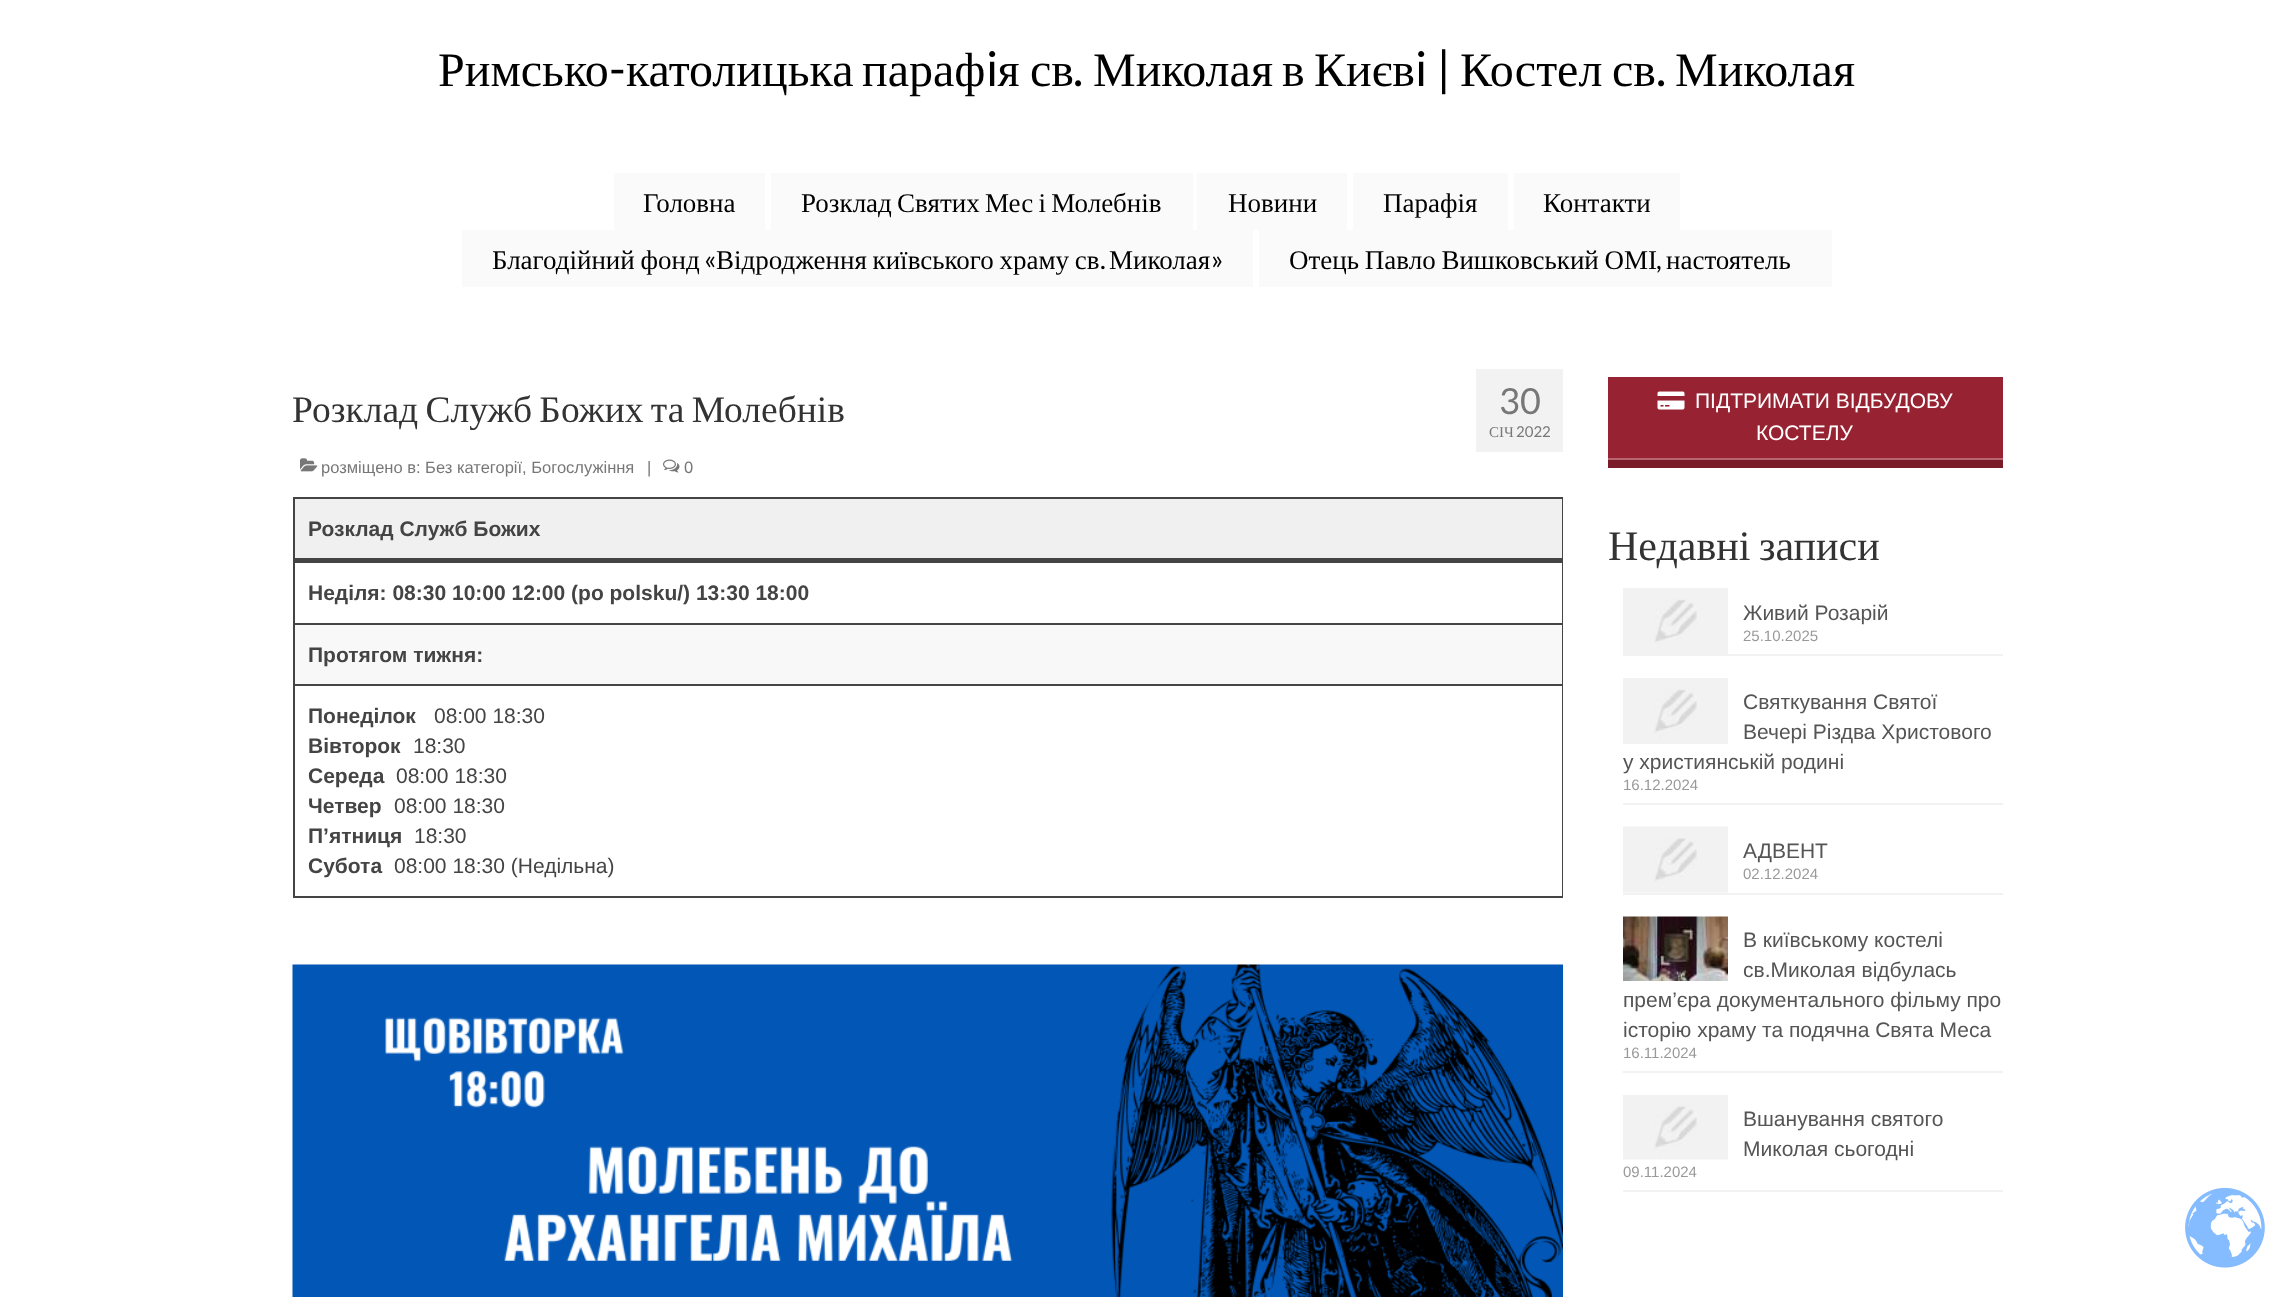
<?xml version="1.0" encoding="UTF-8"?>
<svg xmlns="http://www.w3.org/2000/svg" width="2293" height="1297">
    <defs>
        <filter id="blur1" x="-50%" y="-200%" width="200%" height="500%"><feGaussianBlur stdDeviation="2"/></filter>
    </defs>
    <rect width="100%" height="100%" fill="#FFFFFF"/>
    <text x="862" y="86" font-family="Liberation Serif" font-size="48" fill="#000000">параф я</text>
    <text x="986" y="86" font-family="Lato" font-size="48" fill="#000000">i</text>
    <text x="1415" y="86" font-family="Lato" font-size="48" fill="#000000">i |</text>
    <text x="438" y="86" font-family="Liberation Serif" font-size="48" fill="#000000">Римсько</text>
    <text x="609" y="86" font-family="Lato" font-size="48" fill="#000000">-</text>
    <text x="626" y="86" font-family="Liberation Serif" font-size="48" fill="#000000">католицька</text>
    <text x="1030" y="86" font-family="Liberation Serif" font-size="48" fill="#000000">св</text>
    <text x="1093" y="86" font-family="Liberation Serif" font-size="48" fill="#000000">Миколая</text>
    <text x="1282" y="86" font-family="Liberation Serif" font-size="48" fill="#000000">в</text>
    <text x="1314" y="86" font-family="Liberation Serif" font-size="48" fill="#000000">Києв</text>
    <text x="1460" y="86" font-family="Liberation Serif" font-size="48" fill="#000000">Костел</text>
    <text x="1612" y="86" font-family="Liberation Serif" font-size="48" fill="#000000">св</text>
    <text x="1675" y="86" font-family="Liberation Serif" font-size="48" fill="#000000">Миколая</text>
    <text x="1073" y="86" font-family="Lato" font-size="48" fill="#000000">.</text>
    <text x="1656" y="86" font-family="Lato" font-size="48" fill="#000000">.</text>
    <rect x="614" y="173" width="151" height="57" fill="#FAFAFA"/>
    <text x="643" y="212" font-family="Liberation Serif" font-size="27" fill="#000000">Головна</text>
    <rect x="771" y="173" width="422" height="57" fill="#FAFAFA"/>
    <text x="801" y="212" word-spacing="-1.5" font-family="Liberation Serif" font-size="27" fill="#000000">Розклад Святих Мес і Молебнів</text>
    <rect x="1197" y="173" width="150" height="57" fill="#FAFAFA"/>
    <text x="1228" y="212" font-family="Liberation Serif" font-size="27" fill="#000000">Новини</text>
    <rect x="1353" y="173" width="155" height="57" fill="#FAFAFA"/>
    <text x="1383" y="212" font-family="Liberation Serif" font-size="27" fill="#000000">Парафія</text>
    <rect x="1514" y="173" width="166" height="57" fill="#FAFAFA"/>
    <text x="1543" y="212" font-family="Liberation Serif" font-size="27" fill="#000000">Контакти</text>
    <rect x="462" y="230" width="791" height="57" fill="#FAFAFA"/>
    <text x="492" y="269" word-spacing="-1" font-family="Liberation Serif" font-size="27" fill="#000000">Благодійний фонд</text>
    <text x="704" y="269" font-family="Lato" font-size="27" fill="#000000">«</text>
    <text x="716" y="269" word-spacing="-1" font-family="Liberation Serif" font-size="27" fill="#000000">Відродження київського храму св</text>
    <text x="1100" y="269" font-family="Lato" font-size="27" fill="#000000">.</text>
    <text x="1109" y="269" font-family="Liberation Serif" font-size="27" fill="#000000">Миколая</text>
    <text x="1211" y="269" font-family="Lato" font-size="27" fill="#000000">»</text>
    <rect x="1259" y="230" width="573" height="57" fill="#FAFAFA"/>
    <text x="1289" y="269" word-spacing="-1" font-family="Liberation Serif" font-size="27" fill="#000000">Отець Павло Вишковський ОМІ</text>
    <text x="1656" y="269" font-family="Lato" font-size="27" fill="#000000">,</text>
    <text x="1666" y="269" font-family="Liberation Serif" font-size="27" fill="#000000">настоятель</text>
    <text x="292" y="422" word-spacing="-2" font-family="Liberation Serif" font-size="37.5" fill="#333333">Розклад Служб Божих та Молебнів</text>
    <image x="300" y="458" width="18" height="14" href="img_01.png"/>
    <text x="321" y="473" font-family="Liberation Sans" font-size="16.5" fill="#777777">розміщено в: Без категорії, Богослужіння</text>
    <text x="647" y="473" font-family="Liberation Sans" font-size="16.5" fill="#777777">|</text>
    <image x="663" y="459" width="17" height="14" href="img_02.png"/>
    <text x="684" y="473" font-family="Liberation Sans" font-size="16.5" fill="#777777">0</text>
    <rect x="1476" y="369" width="87" height="83" fill="#F2F2F2"/>
    <text x="1499" y="414" font-family="Lato" font-size="36" fill="#777777">30</text>
    <text x="1489" y="437" font-family="Liberation Serif" font-size="15" fill="#777777">СІЧ</text>
    <text x="1516" y="437" font-family="Lato" font-size="15" fill="#777777">2022</text>
    <rect x="295" y="499" width="1267" height="59" fill="#F0F0F0"/>
    <rect x="293" y="497" width="1270" height="2" fill="#444444"/>
    <rect x="293" y="623" width="1270" height="2" fill="#444444"/>
    <rect x="293" y="684" width="1270" height="2" fill="#444444"/>
    <rect x="1562" y="684" width="1" height="213" fill="#444444"/>
    <rect x="1562" y="560" width="1" height="126" fill="#444444"/>
    <rect x="1562" y="497" width="1" height="64" fill="#444444"/>
    <rect x="293" y="896" width="1270" height="2" fill="#444444"/>
    <rect x="293" y="684" width="2" height="213" fill="#444444"/>
    <rect x="293" y="560" width="2" height="126" fill="#444444"/>
    <rect x="293" y="497" width="2" height="64" fill="#444444"/>
    <rect x="293" y="558" width="1270" height="5" fill="#444444"/>
    <text x="308" y="536" font-family="Liberation Sans" font-size="21" font-weight="700" fill="#444444">Розклад Служб Божих</text>
    <text x="308" y="600" font-family="Liberation Sans" font-size="21" font-weight="700" fill="#444444">Неділя: 08:30 10:00 12:00 (po polsku/) 13:30 18:00</text>
    <rect x="295" y="625" width="1267" height="59" fill="#F8F8F8"/>
    <text x="308" y="662" font-family="Liberation Sans" font-size="21" font-weight="700" fill="#444444">Протягом тижня:</text>
    <text x="308" y="723" font-family="Liberation Sans" font-size="21" font-weight="700" fill="#444444">Понеділок</text>
    <text x="434" y="723" font-family="Liberation Sans" font-size="21" fill="#444444">08:00 18:30</text>
    <text x="308" y="753" font-family="Liberation Sans" font-size="21" font-weight="700" fill="#444444">Вівторок</text>
    <text x="413" y="753" font-family="Liberation Sans" font-size="21" fill="#444444">18:30</text>
    <text x="308" y="783" font-family="Liberation Sans" font-size="21" font-weight="700" fill="#444444">Середа</text>
    <text x="396" y="783" font-family="Liberation Sans" font-size="21" fill="#444444">08:00 18:30</text>
    <text x="308" y="813" font-family="Liberation Sans" font-size="21" font-weight="700" fill="#444444">Четвер</text>
    <text x="394" y="813" font-family="Liberation Sans" font-size="21" fill="#444444">08:00 18:30</text>
    <text x="308" y="843" font-family="Liberation Sans" font-size="21" font-weight="700" fill="#444444">П’ятниця</text>
    <text x="414" y="843" font-family="Liberation Sans" font-size="21" fill="#444444">18:30</text>
    <text x="308" y="873" font-family="Liberation Sans" font-size="21" font-weight="700" fill="#444444">Субота</text>
    <text x="394" y="873" font-family="Liberation Sans" font-size="21" fill="#444444">08:00 18:30 (Недільна)</text>
    <rect x="293" y="966" width="1270" height="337" fill="#000000" fill-opacity="0.06" filter="url(#blur1)"/>
    <image x="292" y="964" width="1271" height="333" href="img_03.png"/>
    <rect x="1608" y="377" width="395" height="81" fill="#972232"/>
    <rect x="1608" y="460" width="395" height="8" fill="#791C28"/>
    <rect x="1608" y="458" width="395" height="2" fill="#B76570"/>
    <image x="1657" y="391" width="28" height="19" href="img_04.png"/>
    <text x="1695" y="408" font-family="Liberation Sans" font-size="21" fill="#FFFFFF">ПІДТРИМАТИ ВІДБУДОВУ</text>
    <text x="1756" y="440" font-family="Liberation Sans" font-size="21" fill="#FFFFFF">КОСТЕЛУ</text>
    <text x="1608" y="560" word-spacing="-2" font-family="Liberation Serif" font-size="42" fill="#333333">Недавні записи</text>
    <rect x="1623" y="654" width="380" height="2" fill="#F2F2F2"/>
    <image x="1623" y="588" width="105" height="66" href="img_05.png"/>
    <text x="1743" y="620" font-family="Liberation Sans" font-size="21" fill="#555555">Живий Розарій</text>
    <text x="1743" y="641" font-family="Liberation Sans" font-size="15" fill="#999999">25.10.2025</text>
    <rect x="1623" y="803" width="380" height="2" fill="#F2F2F2"/>
    <image x="1623" y="678" width="105" height="66" href="img_05.png"/>
    <text font-family="Liberation Sans" font-size="21" fill="#555555">
        <tspan x="1743" y="709">Святкування Святої</tspan>
        <tspan x="1743" y="739">Вечері Різдва Христового</tspan>
    </text>
    <text x="1623" y="769" font-family="Liberation Sans" font-size="21" fill="#555555">у християнській родині</text>
    <text x="1623" y="790" font-family="Liberation Sans" font-size="15" fill="#999999">16.12.2024</text>
    <rect x="1623" y="893" width="380" height="2" fill="#F2F2F2"/>
    <image x="1623" y="826" width="105" height="67" href="img_06.png"/>
    <text x="1743" y="858" font-family="Liberation Sans" font-size="21" fill="#555555">АДВЕНТ</text>
    <text x="1743" y="879" font-family="Liberation Sans" font-size="15" fill="#999999">02.12.2024</text>
    <rect x="1623" y="1071" width="380" height="2" fill="#F2F2F2"/>
    <image x="1623" y="916" width="105" height="65" href="img_07.png"/>
    <text font-family="Liberation Sans" font-size="21" fill="#555555">
        <tspan x="1743" y="947">В київському костелі</tspan>
        <tspan x="1743" y="977">св.Миколая відбулась</tspan>
    </text>
    <text font-family="Liberation Sans" font-size="21" fill="#555555">
        <tspan x="1623" y="1007">прем’єра документального фільму про</tspan>
        <tspan x="1623" y="1037">історію храму та подячна Свята Меса</tspan>
    </text>
    <text x="1623" y="1058" font-family="Liberation Sans" font-size="15" fill="#999999">16.11.2024</text>
    <rect x="1623" y="1190" width="380" height="2" fill="#F2F2F2"/>
    <image x="1623" y="1095" width="105" height="65" href="img_08.png"/>
    <text font-family="Liberation Sans" font-size="21" fill="#555555">
        <tspan x="1743" y="1126">Вшанування святого</tspan>
        <tspan x="1743" y="1156">Миколая сьогодні</tspan>
    </text>
    <text x="1623" y="1177" font-family="Liberation Sans" font-size="15" fill="#999999">09.11.2024</text>
    <image x="2185" y="1187" width="80" height="81" href="img_09.png"/>
</svg>
